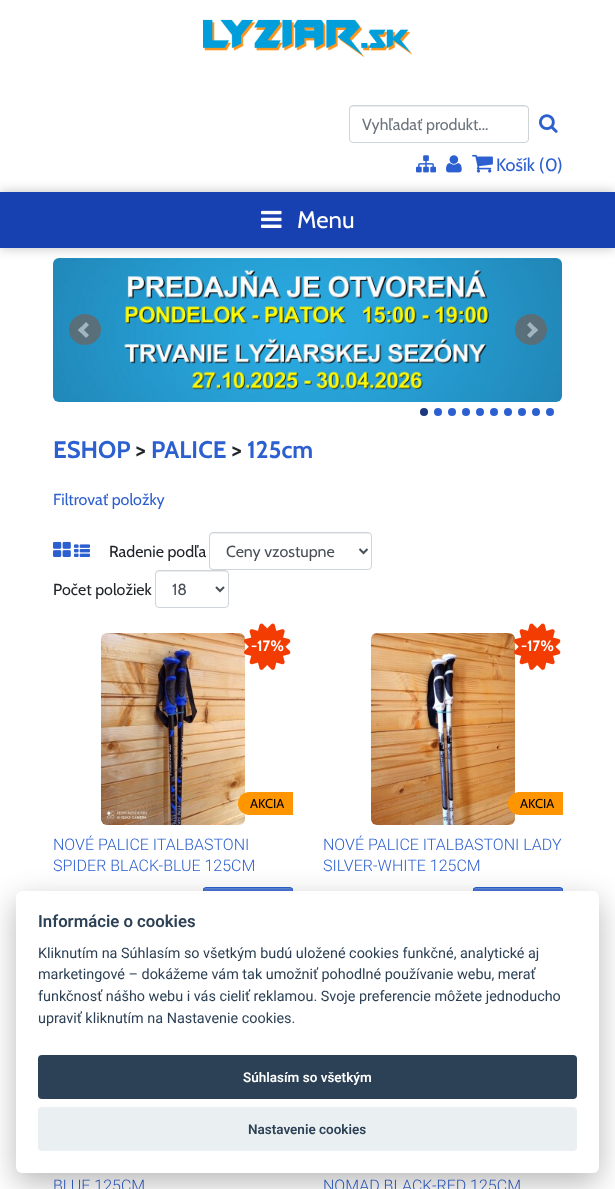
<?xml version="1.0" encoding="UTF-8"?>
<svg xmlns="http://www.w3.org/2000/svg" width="615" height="1189">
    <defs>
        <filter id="blur1" x="-50%" y="-200%" width="200%" height="500%"><feGaussianBlur stdDeviation="6"/></filter>
        <clipPath id="clip1"><rect x="203" y="887" width="90" height="31" rx="3"/></clipPath>
        <linearGradient id="g1" gradientUnits="userSpaceOnUse" x1="248" y1="888" x2="248" y2="917"><stop offset="0" stop-color="#4C77D6"/><stop offset="1" stop-color="#2C5FCF"/></linearGradient>
        <clipPath id="clip2"><rect x="473" y="887" width="90" height="31" rx="3"/></clipPath>
        <linearGradient id="g2" gradientUnits="userSpaceOnUse" x1="518" y1="888" x2="518" y2="917"><stop offset="0" stop-color="#4C77D6"/><stop offset="1" stop-color="#2C5FCF"/></linearGradient>
        <filter id="blur2" x="-50%" y="-200%" width="200%" height="500%"><feGaussianBlur stdDeviation="15"/></filter>
    </defs>
    <rect width="100%" height="100%" fill="#FFFFFF"/>
    <image x="203" y="19" width="209" height="38" href="img_01.png"/>
    <path d="M 353 107 H 525 C 527 107 528 108 528 110 V 109 C 528 107 527 106 525 106 H 353 C 351 106 350 107 350 109 V 110 C 350 108 351 107 353 107 Z" fill="#ECECEC"/>
    <rect x="349.5" y="105.5" width="179" height="37" rx="3.5" fill="none" stroke="#CED4DA"/>
    <text x="362" y="130" font-family="Cabin" font-size="16" fill="#6C757D">Vyhľadať produkt...</text>
    <image x="539" y="114" width="19" height="19" href="img_02.png"/>
    <image x="416" y="155" width="20" height="18" href="img_03.png"/>
    <image x="446" y="155" width="16" height="18" href="img_04.png"/>
    <image x="472" y="154" width="21" height="19" href="img_05.png"/>
    <rect x="0" y="192" width="615" height="56" fill="#000000" fill-opacity="0.25" filter="url(#blur1)"/>
    <text x="496" y="171" font-family="Cabin" font-size="18" fill="#2C5FCF">Košík (</text>
    <text x="545" y="171" font-family="Cabin" font-size="18" fill="#2C5FCF">0</text>
    <text x="557" y="171" font-family="Cabin" font-size="18" fill="#2C5FCF">)</text>
    <rect x="0" y="192" width="615" height="56" fill="#1741B0"/>
    <image x="261" y="210" width="21" height="18" href="img_06.png"/>
    <text x="297" y="228" font-family="Cabin" font-size="24" fill="#FFFFFF">Menu</text>
    <image x="53" y="258" width="509" height="144" href="img_07.png"/>
    <image x="69" y="314" width="32" height="31" href="img_08.png"/>
    <image x="515" y="314" width="32" height="31" href="img_09.png"/>
    <circle cx="424" cy="412" r="4" fill="#1A387B"/>
    <circle cx="438" cy="412" r="4" fill="#2C5FCF"/>
    <circle cx="452" cy="412" r="4" fill="#2C5FCF"/>
    <circle cx="466" cy="412" r="4" fill="#2C5FCF"/>
    <circle cx="480" cy="412" r="4" fill="#2C5FCF"/>
    <circle cx="494" cy="412" r="4" fill="#2C5FCF"/>
    <circle cx="508" cy="412" r="4" fill="#2C5FCF"/>
    <circle cx="522" cy="412" r="4" fill="#2C5FCF"/>
    <circle cx="536" cy="412" r="4" fill="#2C5FCF"/>
    <circle cx="550" cy="412" r="4" fill="#2C5FCF"/>
    <text x="53" y="458" font-family="Cabin" font-size="24" font-weight="700" fill="#2C5FCF">ESHOP</text>
    <text x="136" y="458" font-family="Cabin" font-size="24" font-weight="700" fill="#212529">&gt;</text>
    <text x="151" y="458" font-family="Cabin" font-size="24" font-weight="700" fill="#2C5FCF">PALICE</text>
    <text x="232" y="458" font-family="Cabin" font-size="24" font-weight="700" fill="#212529">&gt;</text>
    <text x="247" y="458" font-family="Cabin" font-size="24" font-weight="700" fill="#2C5FCF">125cm</text>
    <text x="53" y="505" font-family="Cabin" font-size="16" fill="#2C5FCF">Filtrovať položky</text>
    <image x="53" y="541" width="18" height="16" href="img_10.png"/>
    <image x="74" y="544" width="16" height="13" href="img_11.png"/>
    <text x="109" y="557" font-family="Cabin" font-size="16" fill="#212529">Radenie podľa</text>
    <path d="M 213 534 H 368 C 370 534 371 535 371 537 C 371 535 370 533 368 533 H 212 C 210 533 210 535 210 537 C 210 535 211 534 213 534 Z" fill="#ECECEC"/>
    <rect x="209.5" y="532.5" width="162" height="37" rx="3.5" fill="none" stroke="#CED4DA"/>
    <path d="M 359.5 549 L 363.5 553 L 367.5 549" fill="none" stroke="#495057" stroke-width="2"/>
    <text x="226" y="557" font-family="Cabin" font-size="16" fill="#495057">Ceny vzostupne</text>
    <text x="53" y="595" font-family="Cabin" font-size="16" fill="#212529">Počet položiek</text>
    <path d="M 159 572 H 225 C 227 572 228 573 228 575 C 228 568 218 571 214 571 H 170 C 166 571 156 568 156 575 C 156 573 157 572 159 572 Z" fill="#ECECEC"/>
    <rect x="155.5" y="570.5" width="73" height="37" rx="3.5" fill="none" stroke="#CED4DA"/>
    <path d="M 216 587 L 220 591 L 224 587" fill="none" stroke="#495057" stroke-width="2"/>
    <text x="172" y="595" font-family="Cabin" font-size="16" fill="#495057">18</text>
    <image x="101" y="633" width="144" height="192" href="img_13.png"/>
    <image x="244" y="623" width="47" height="47" href="img_12.png"/>
    <text x="251" y="651" font-family="Cabin" font-size="15" font-weight="700" fill="#FFFFFF">-17%</text>
    <g clip-path="url(#clip1)">
        <rect x="203" y="888" width="90" height="3" fill="url(#g1)"/>
    </g>
    <path d="M 206 889 H 290 C 291 889 292 890 292 891 C 292 884 278 888 276 888 H 220 C 218 888 204 884 204 891 C 204 890 205 889 206 889 Z" fill="#FFFFFF" fill-opacity="0.15"/>
    <rect x="203.5" y="887.5" width="89" height="30" rx="2.5" fill="none" stroke="#2C5FCF"/>
    <path d="M 249.5 792 H 293 V 815 H 249.5 C 243 815 238 810 238 803.5 C 238 797 243 792 249.5 792 Z" fill="#FF9500"/>
    <text x="250" y="808" font-family="Cabin" font-size="13" fill="#000000">AKCIA</text>
    <text font-family="Roboto" font-size="16" font-weight="300" fill="#2C5FCF">
        <tspan x="53" y="850">NOVÉ PALICE ITALBASTONI</tspan>
        <tspan x="53" y="871">SPIDER BLACK-BLUE 125CM</tspan>
    </text>
    <image x="371" y="633" width="144" height="192" href="img_15.png"/>
    <image x="514" y="623" width="47" height="47" href="img_14.png"/>
    <text x="521" y="651" font-family="Cabin" font-size="15" font-weight="700" fill="#FFFFFF">-17%</text>
    <g clip-path="url(#clip2)">
        <rect x="473" y="888" width="90" height="3" fill="url(#g2)"/>
    </g>
    <path d="M 476 889 H 560 C 561 889 562 890 562 891 C 562 884 548 888 546 888 H 490 C 488 888 474 884 474 891 C 474 890 475 889 476 889 Z" fill="#FFFFFF" fill-opacity="0.15"/>
    <rect x="473.5" y="887.5" width="89" height="30" rx="2.5" fill="none" stroke="#2C5FCF"/>
    <path d="M 519.5 792 H 563 V 815 H 519.5 C 513 815 508 810 508 803.5 C 508 797 513 792 519.5 792 Z" fill="#FF9500"/>
    <text x="520" y="808" font-family="Cabin" font-size="13" fill="#000000">AKCIA</text>
    <text font-family="Roboto" font-size="16" font-weight="300" fill="#2C5FCF">
        <tspan x="323" y="850">NOVÉ PALICE ITALBASTONI LADY</tspan>
        <tspan x="323" y="871">SILVER-WHITE 125CM</tspan>
    </text>
    <text x="53" y="1191" font-family="Roboto" font-size="16" font-weight="300" fill="#2C5FCF">BLUE 125CM</text>
    <text x="323" y="1191" font-family="Roboto" font-size="16" font-weight="300" fill="#2C5FCF">NOMAD BLACK-RED 125CM</text>
    <rect x="16" y="901" width="583" height="282" rx="6" fill="#020203" fill-opacity="0.28" filter="url(#blur2)"/>
    <rect x="16" y="891" width="583" height="282" rx="6" fill="#FFFFFF"/>
    <text x="38" y="927" font-family="Roboto" font-size="16.75" font-weight="600" fill="#2D4156">Informácie o cookies</text>
    <text font-family="Roboto" font-size="14.4" fill="#2D4156">
        <tspan x="38" y="958">Kliknutím na Súhlasím so všetkým budú uložené cookies funkčné, analytické aj</tspan>
        <tspan x="38" y="979">marketingové – dokážeme vám tak umožniť pohodlné používanie webu, merať</tspan>
        <tspan x="38" y="1001">funkčnosť nášho webu i vás cieliť reklamou. Svoje preferencie môžete jednoducho</tspan>
        <tspan x="38" y="1023">upraviť kliknutím na Nastavenie cookies.</tspan>
    </text>
    <rect x="38" y="1055" width="539" height="44" rx="4" fill="#2D4156"/>
    <text x="243" y="1082" font-family="Roboto" font-size="13.5" font-weight="600" fill="#FFFFFF">Súhlasím so všetkým</text>
    <rect x="38" y="1107" width="539" height="44" rx="4" fill="#EAEFF2"/>
    <text x="248" y="1134" font-family="Roboto" font-size="13.5" font-weight="600" fill="#2D4156">Nastavenie cookies</text>
</svg>
